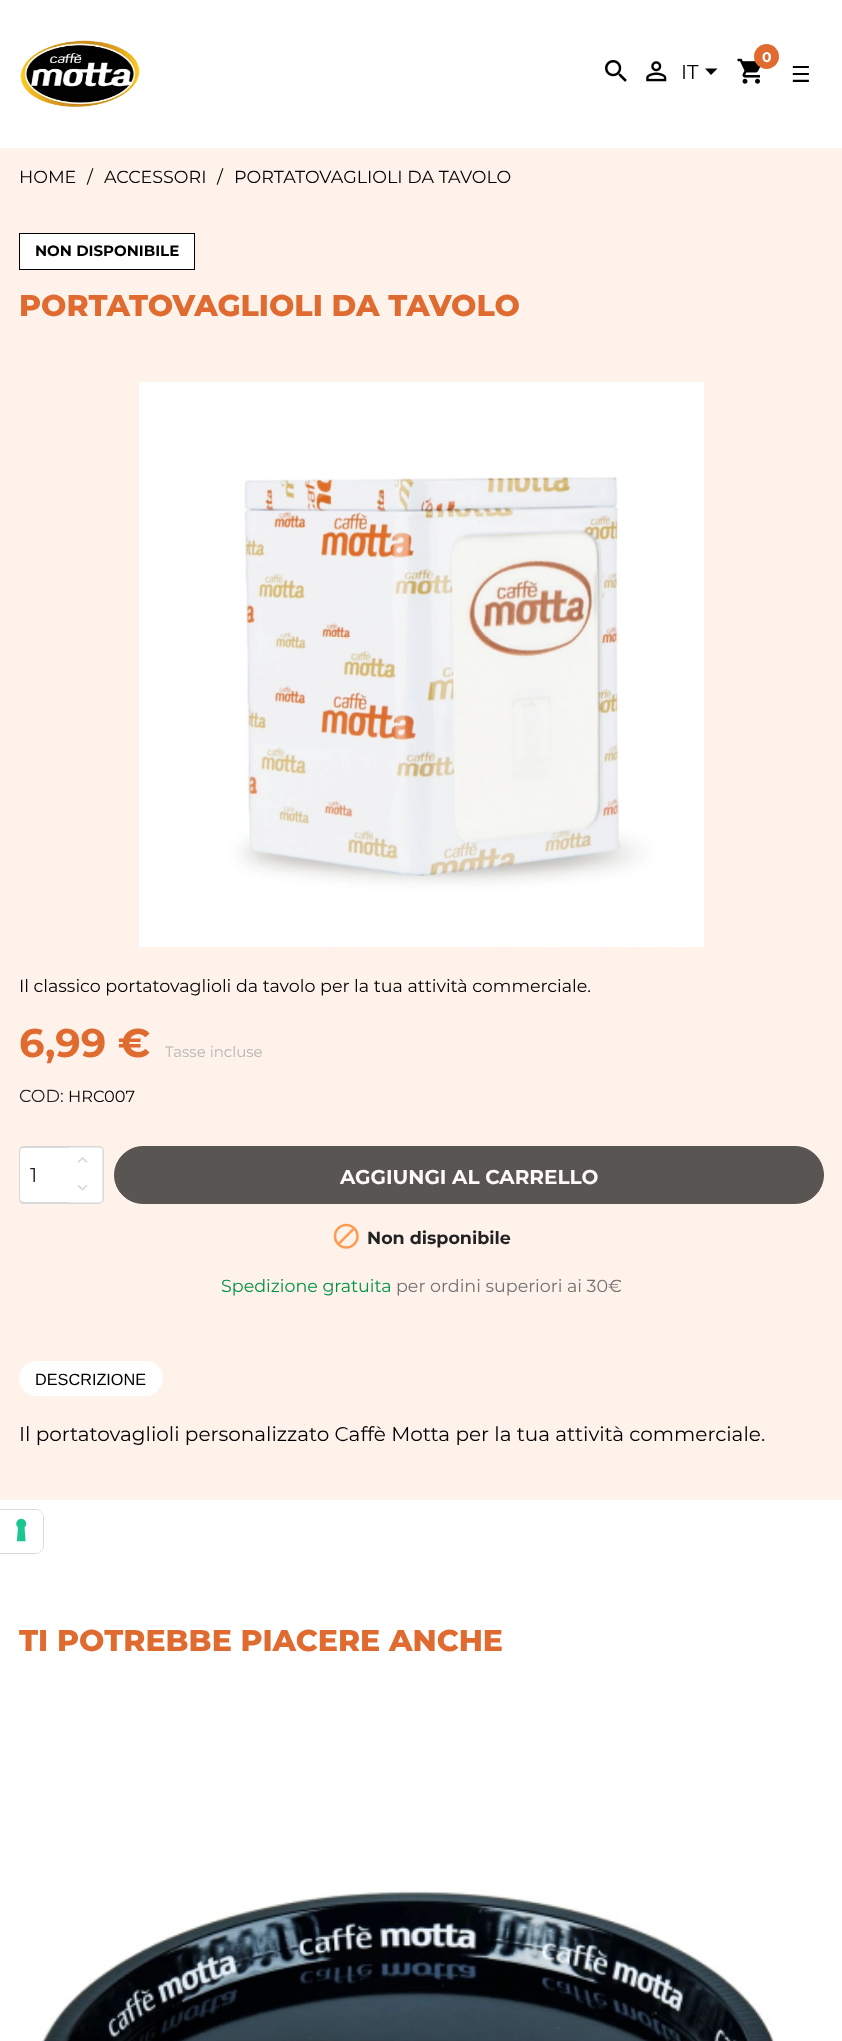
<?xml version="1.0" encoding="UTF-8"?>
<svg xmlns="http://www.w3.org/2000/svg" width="842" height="2041">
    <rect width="100%" height="100%" fill="#FFF2EB"/>
    <rect x="0" y="0" width="842" height="148" fill="#FFFFFF"/>
    <image x="20" y="40" width="120" height="67" href="img_01.png"/>
    <image x="737" y="58" width="24" height="26" href="img_02.png"/>
    <circle cx="766.5" cy="56.5" r="12.5" fill="#E06B31"/>
    <text x="762" y="62" font-family="Montserrat" font-size="14" font-weight="700" fill="#FFFFFF">0</text>
    <image x="605" y="60" width="22" height="22" href="img_03.png"/>
    <image x="646" y="61" width="21" height="21" href="img_04.png"/>
    <text x="681" y="79" font-family="Montserrat" font-size="20" fill="#000000">IT</text>
    <path d="M 705 68.5 H 717.5 L 711 75 Z" fill="#000000"/>
    <text x="791" y="82" font-family="DejaVu Sans" font-size="22" fill="#000000">☰</text>
    <text x="19" y="183" font-family="Montserrat" font-size="17.5" fill="#000000">HOME</text>
    <text x="87" y="183" font-family="Montserrat" font-size="17.5" fill="#000000">/</text>
    <text x="104" y="183" font-family="Montserrat" font-size="17.5" fill="#000000">ACCESSORI</text>
    <text x="217" y="183" font-family="Montserrat" font-size="17.5" fill="#000000">/</text>
    <text x="234" y="183" font-family="Montserrat" font-size="17.5" fill="#000000">PORTATOVAGLIOLI DA TAVOLO</text>
    <rect x="19.5" y="233.5" width="175" height="36" fill="#FFFFFF" stroke="#000000"/>
    <text x="35" y="256" font-family="Montserrat" font-size="15" font-weight="700" fill="#000000">NON DISPONIBILE</text>
    <text x="19" y="316" font-family="Montserrat" font-size="30" font-weight="800" fill="#E06B30">PORTATOVAGLIOLI DA TAVOLO</text>
    <image x="139" y="382" width="565" height="565" href="img_05.png"/>
    <text x="19" y="992" font-family="Montserrat" font-size="17.5" fill="#000000">Il classico portatovaglioli da tavolo per la tua attività commerciale.</text>
    <text x="19" y="1057" font-family="Montserrat" font-size="40" font-weight="700" fill="#E06B30">6,99 €</text>
    <text x="165" y="1057" font-family="Montserrat" font-size="15" fill="#B5B5B5">Tasse incluse</text>
    <text x="19" y="1102" font-family="Montserrat" font-size="17.5" fill="#232323">COD:</text>
    <text x="68" y="1102" font-family="Montserrat" font-size="16.25" fill="#000000">HRC007</text>
    <path d="M 24 1146 H 69 V 1204 H 24 C 21 1204 19 1202 19 1199 V 1151 C 19 1148 21 1146 24 1146 Z" fill="#FFFFFF"/>
    <path d="M 24 1146 H 69 V 1204 H 24 C 21 1204 19 1202 19 1199 V 1151 C 19 1148 21 1146 24 1146 Z M 24 1148 H 69 V 1202 H 24 C 22 1202 20 1201 20 1199 V 1151 C 20 1149 22 1148 24 1148 Z" fill="#D8D8D8" fill-rule="evenodd"/>
    <text x="30" y="1182" font-family="Montserrat" font-size="20" fill="#232323">1</text>
    <path d="M 69 1146 H 99 C 102 1146 104 1148 104 1151 V 1175 H 69 Z" fill="#FFFFFF"/>
    <path d="M 69 1146 H 99 C 101.5 1146 104 1148.5 104 1151 V 1175 H 69 Z M 69 1147.5 H 99 C 101 1147.5 102.5 1149 102.5 1151 V 1175 H 69 Z" fill="#D8D8D8" fill-rule="evenodd"/>
    <image x="77" y="1157" width="11" height="6" href="img_06.png"/>
    <path d="M 69 1175 H 104 V 1199 C 104 1202 102 1204 99 1204 H 69 Z" fill="#FFFFFF"/>
    <path d="M 69 1175 H 104 V 1199 C 104 1201.5 101.5 1204 99 1204 H 69 Z M 69 1175 H 102.5 V 1199 C 102.5 1201 101 1202.5 99 1202.5 H 69 Z" fill="#D8D8D8" fill-rule="evenodd"/>
    <image x="77" y="1184" width="11" height="7" href="img_07.png"/>
    <rect x="114.5" y="1146.5" width="709" height="57" rx="28.5" fill="#595552" stroke="#595552"/>
    <text x="340" y="1184" font-family="Montserrat" font-size="20" font-weight="700" fill="#FFFAF8">AGGIUNGI AL CARRELLO</text>
    <image x="333" y="1223" width="26" height="26" href="img_08.png"/>
    <text x="367" y="1244" font-family="Montserrat" font-size="17.5" font-weight="700" fill="#232323">Non disponibile</text>
    <text x="221" y="1292" font-family="Montserrat" font-size="17.5" fill="#009246">Spedizione gratuita</text>
    <text x="396" y="1292" font-family="Montserrat" font-size="17.5" fill="#717171">per ordini superiori ai 30€</text>
    <rect x="19" y="1361" width="144" height="35" rx="17.5" fill="#FFFFFF"/>
    <text x="35" y="1385" font-family="Liberation Sans" font-size="16.25" fill="#000000">DESCRIZIONE</text>
    <text x="19" y="1441" font-family="Montserrat" font-size="20" fill="#000000">Il portatovaglioli personalizzato Caffè Motta per la tua attività commerciale.</text>
    <rect x="0" y="1500" width="842" height="541" fill="#FFFFFF"/>
    <text x="19" y="1651" font-family="Montserrat" font-size="30" font-weight="800" fill="#E06B30">TI POTREBBE PIACERE ANCHE</text>
    <image x="42" y="1890" width="733" height="151" href="img_09.png"/>
    <path d="M -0.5 1509.5 H 35 C 39.5 1509.5 43.5 1513.5 43.5 1518 V 1545 C 43.5 1549.5 39.5 1553.5 35 1553.5 H -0.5 Z" fill="none" stroke="#D9D9D9"/>
    <path d="M 0 1510 H 35 C 39.5 1510 43 1513.5 43 1518 V 1545 C 43 1549.5 39.5 1553 35 1553 H 0 Z" fill="#FFFFFF"/>
    <image x="16" y="1518" width="11" height="24" href="img_10.png"/>
</svg>
